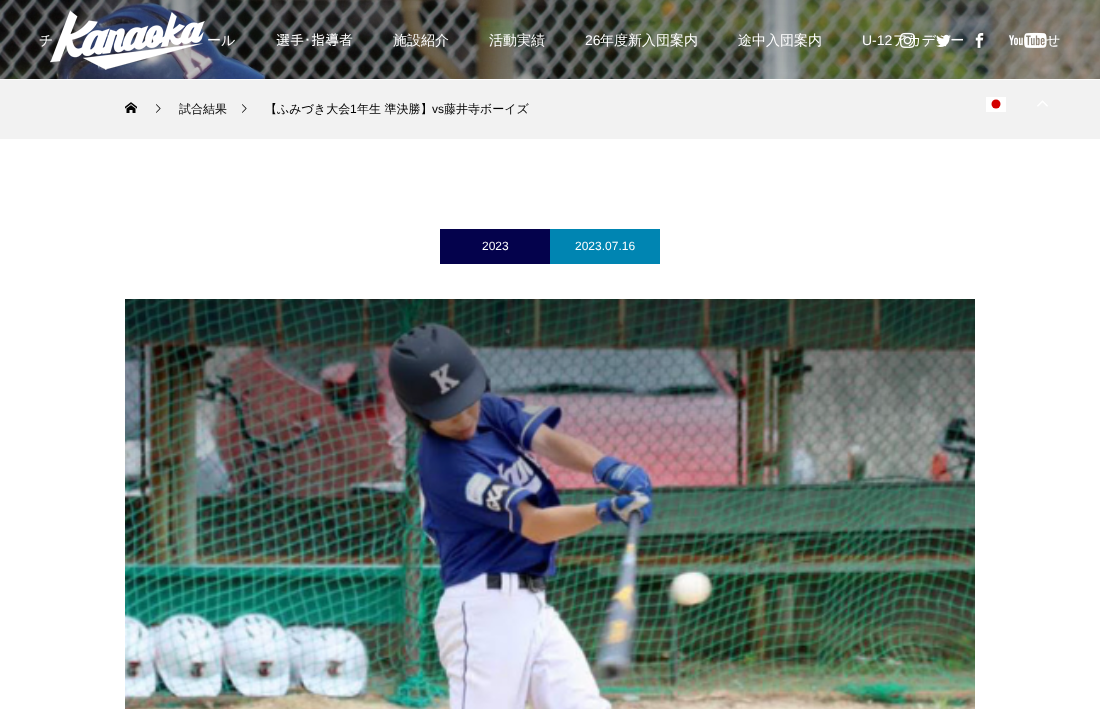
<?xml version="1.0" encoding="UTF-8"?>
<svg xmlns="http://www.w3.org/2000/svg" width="1100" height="709">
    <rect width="100%" height="100%" fill="#FFFFFF"/>
    <image x="0" y="0" width="1100" height="79" href="img_01.png"/>
    <text x="39" y="45" font-family="WenQuanYi Zen Hei" font-size="14" font-weight="500" fill="#FFFFFF">チ</text>
    <image x="50" y="10" width="155" height="60" href="img_02.png"/>
    <text x="893" y="45" font-family="WenQuanYi Zen Hei" font-size="14" font-weight="500" fill="#FFFFFF">アカデミー</text>
    <image x="900" y="32" width="15" height="16" href="img_03.png"/>
    <image x="936" y="34" width="15" height="13" href="img_04.png"/>
    <image x="975" y="32" width="9" height="16" href="img_05.png"/>
    <text x="1046" y="45" font-family="WenQuanYi Zen Hei" font-size="14" font-weight="500" fill="#FFFFFF">せ</text>
    <image x="1009" y="32" width="38" height="16" href="img_06.png"/>
    <text x="207" y="45" font-family="WenQuanYi Zen Hei" font-size="14" font-weight="500" fill="#FFFFFF">ール</text>
    <text x="276" y="45" font-family="IPAPGothic" font-size="14" fill="#FFFFFF">選手･指導者</text>
    <text x="393" y="45" font-family="WenQuanYi Zen Hei" font-size="14" font-weight="500" fill="#FFFFFF">施設紹介</text>
    <text x="489" y="45" font-family="WenQuanYi Zen Hei" font-size="14" font-weight="500" fill="#FFFFFF">活動実績</text>
    <text x="585" y="45" font-family="Liberation Sans" font-size="14" fill="#FFFFFF">26</text>
    <text x="600" y="45" font-family="WenQuanYi Zen Hei" font-size="14" font-weight="500" fill="#FFFFFF">年度新入団案内</text>
    <text x="738" y="45" font-family="WenQuanYi Zen Hei" font-size="14" font-weight="500" fill="#FFFFFF">途中入団案内</text>
    <text x="862" y="45" font-family="Liberation Sans" font-size="14" fill="#FFFFFF">U-12</text>
    <rect x="0" y="80" width="1100" height="59" fill="#F2F2F2"/>
    <image x="125" y="102" width="12" height="11" href="img_07.png"/>
    <image x="156" y="104" width="5" height="9" href="img_08.png"/>
    <text x="179" y="113" font-family="WenQuanYi Zen Hei" font-size="12" font-weight="500" fill="#000000">試合結果</text>
    <image x="242" y="104" width="5" height="9" href="img_08.png"/>
    <text x="265" y="113" font-family="WenQuanYi Zen Hei" font-size="12" font-weight="500" fill="#000000">【ふみづき大会</text>
    <text x="350" y="113" font-family="Liberation Sans" font-size="12" fill="#000000">1</text>
    <text x="357" y="113" font-family="WenQuanYi Zen Hei" font-size="12" font-weight="500" fill="#000000">年生 準決勝】</text>
    <text x="432" y="113" font-family="Liberation Sans" font-size="12" fill="#000000">vs</text>
    <text x="444" y="113" font-family="WenQuanYi Zen Hei" font-size="12" font-weight="500" fill="#000000">藤井寺ボーイズ</text>
    <rect x="986" y="97" width="20" height="15" fill="#FFFFFF"/>
    <circle cx="996" cy="104" r="4.5" fill="#D30000"/>
    <image x="1037" y="100" width="11" height="7" href="img_09.png"/>
    <rect x="440" y="229" width="110" height="35" fill="#04024C"/>
    <text x="482" y="250" font-family="Liberation Sans" font-size="12" fill="#FFFFFF">2023</text>
    <rect x="550" y="229" width="110" height="35" fill="#0085B2"/>
    <text x="575" y="250" font-family="Liberation Sans" font-size="12" fill="#FFFFFF">2023.07.16</text>
    <image x="125" y="299" width="850" height="410" href="img_10.png"/>
</svg>
